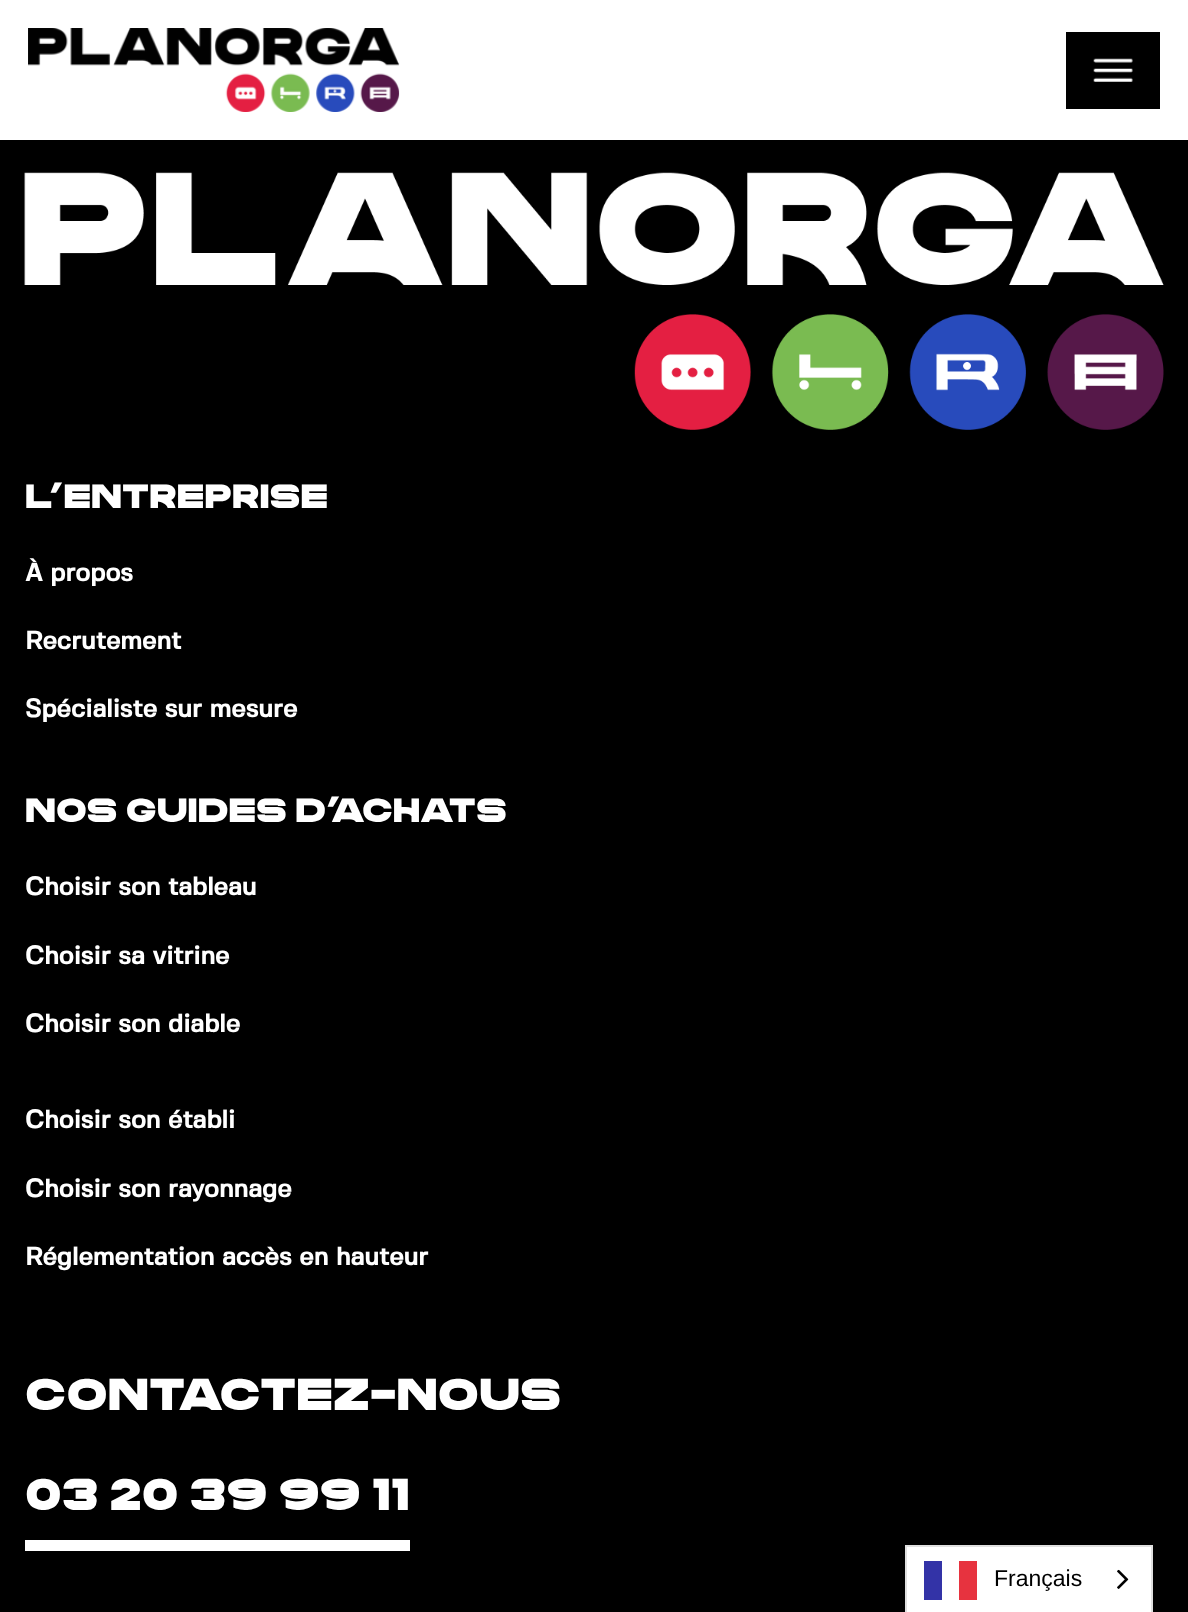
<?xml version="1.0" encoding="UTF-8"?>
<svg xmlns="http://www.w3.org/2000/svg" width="1188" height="1612">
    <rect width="100%" height="100%" fill="#000000"/>
    <rect x="0" y="0" width="1188" height="140" fill="#FFFFFF"/>
    <image x="28" y="28" width="372" height="84" href="img_01.png"/>
    <rect x="1066" y="32" width="94" height="77" fill="#000000"/>
    <image x="1093" y="58" width="40" height="24" href="img_02.png"/>
    <image x="24" y="172" width="1140" height="258" href="img_03.png"/>
    <text x="25" y="508" font-family="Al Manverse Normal" font-size="33.6" fill="#FFFFFF">L'entreprise</text>
    <text x="25" y="581" font-family="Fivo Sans" font-size="25.25" font-weight="700" fill="#FFFFFF">À propos</text>
    <text x="25" y="649" font-family="Fivo Sans" font-size="25.25" font-weight="700" fill="#FFFFFF">Recrutement</text>
    <text x="25" y="717" font-family="Fivo Sans" font-size="25.25" font-weight="700" fill="#FFFFFF">Spécialiste sur mesure</text>
    <text x="25" y="822" font-family="Al Manverse Normal" font-size="33.6" fill="#FFFFFF">Nos guides d'achats</text>
    <text x="25" y="895" font-family="Fivo Sans" font-size="25.25" font-weight="700" fill="#FFFFFF">Choisir son tableau</text>
    <text x="25" y="964" font-family="Fivo Sans" font-size="25.25" font-weight="700" fill="#FFFFFF">Choisir sa vitrine</text>
    <text x="25" y="1032" font-family="Fivo Sans" font-size="25.25" font-weight="700" fill="#FFFFFF">Choisir son diable</text>
    <text x="25" y="1128" font-family="Fivo Sans" font-size="25.25" font-weight="700" fill="#FFFFFF">Choisir son établi</text>
    <text x="25" y="1197" font-family="Fivo Sans" font-size="25.25" font-weight="700" fill="#FFFFFF">Choisir son rayonnage</text>
    <text x="25" y="1265" font-family="Fivo Sans" font-size="25.25" font-weight="700" fill="#FFFFFF">Réglementation accès en hauteur</text>
    <text x="25" y="1410" font-family="Al Manverse Normal" font-size="44.75" fill="#FFFFFF">Contactez-nous</text>
    <text x="25" y="1510" font-family="Al Manverse Normal" font-size="44.75" fill="#FFFFFF">03 20 39 99 11</text>
    <rect x="25" y="1540" width="385" height="11" fill="#FFFFFF"/>
    <rect x="906" y="1546" width="246" height="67" fill="#FFFFFF" stroke="#E0E0E0" stroke-width="2"/>
    <rect x="924" y="1561" width="18" height="39" fill="#3333A7"/>
    <rect x="959" y="1561" width="18" height="39" fill="#E7333F"/>
    <text x="994" y="1586" font-family="Liberation Sans" font-size="23" fill="#000000">Français</text>
    <image x="1117" y="1569" width="12" height="20" href="img_04.png"/>
</svg>
